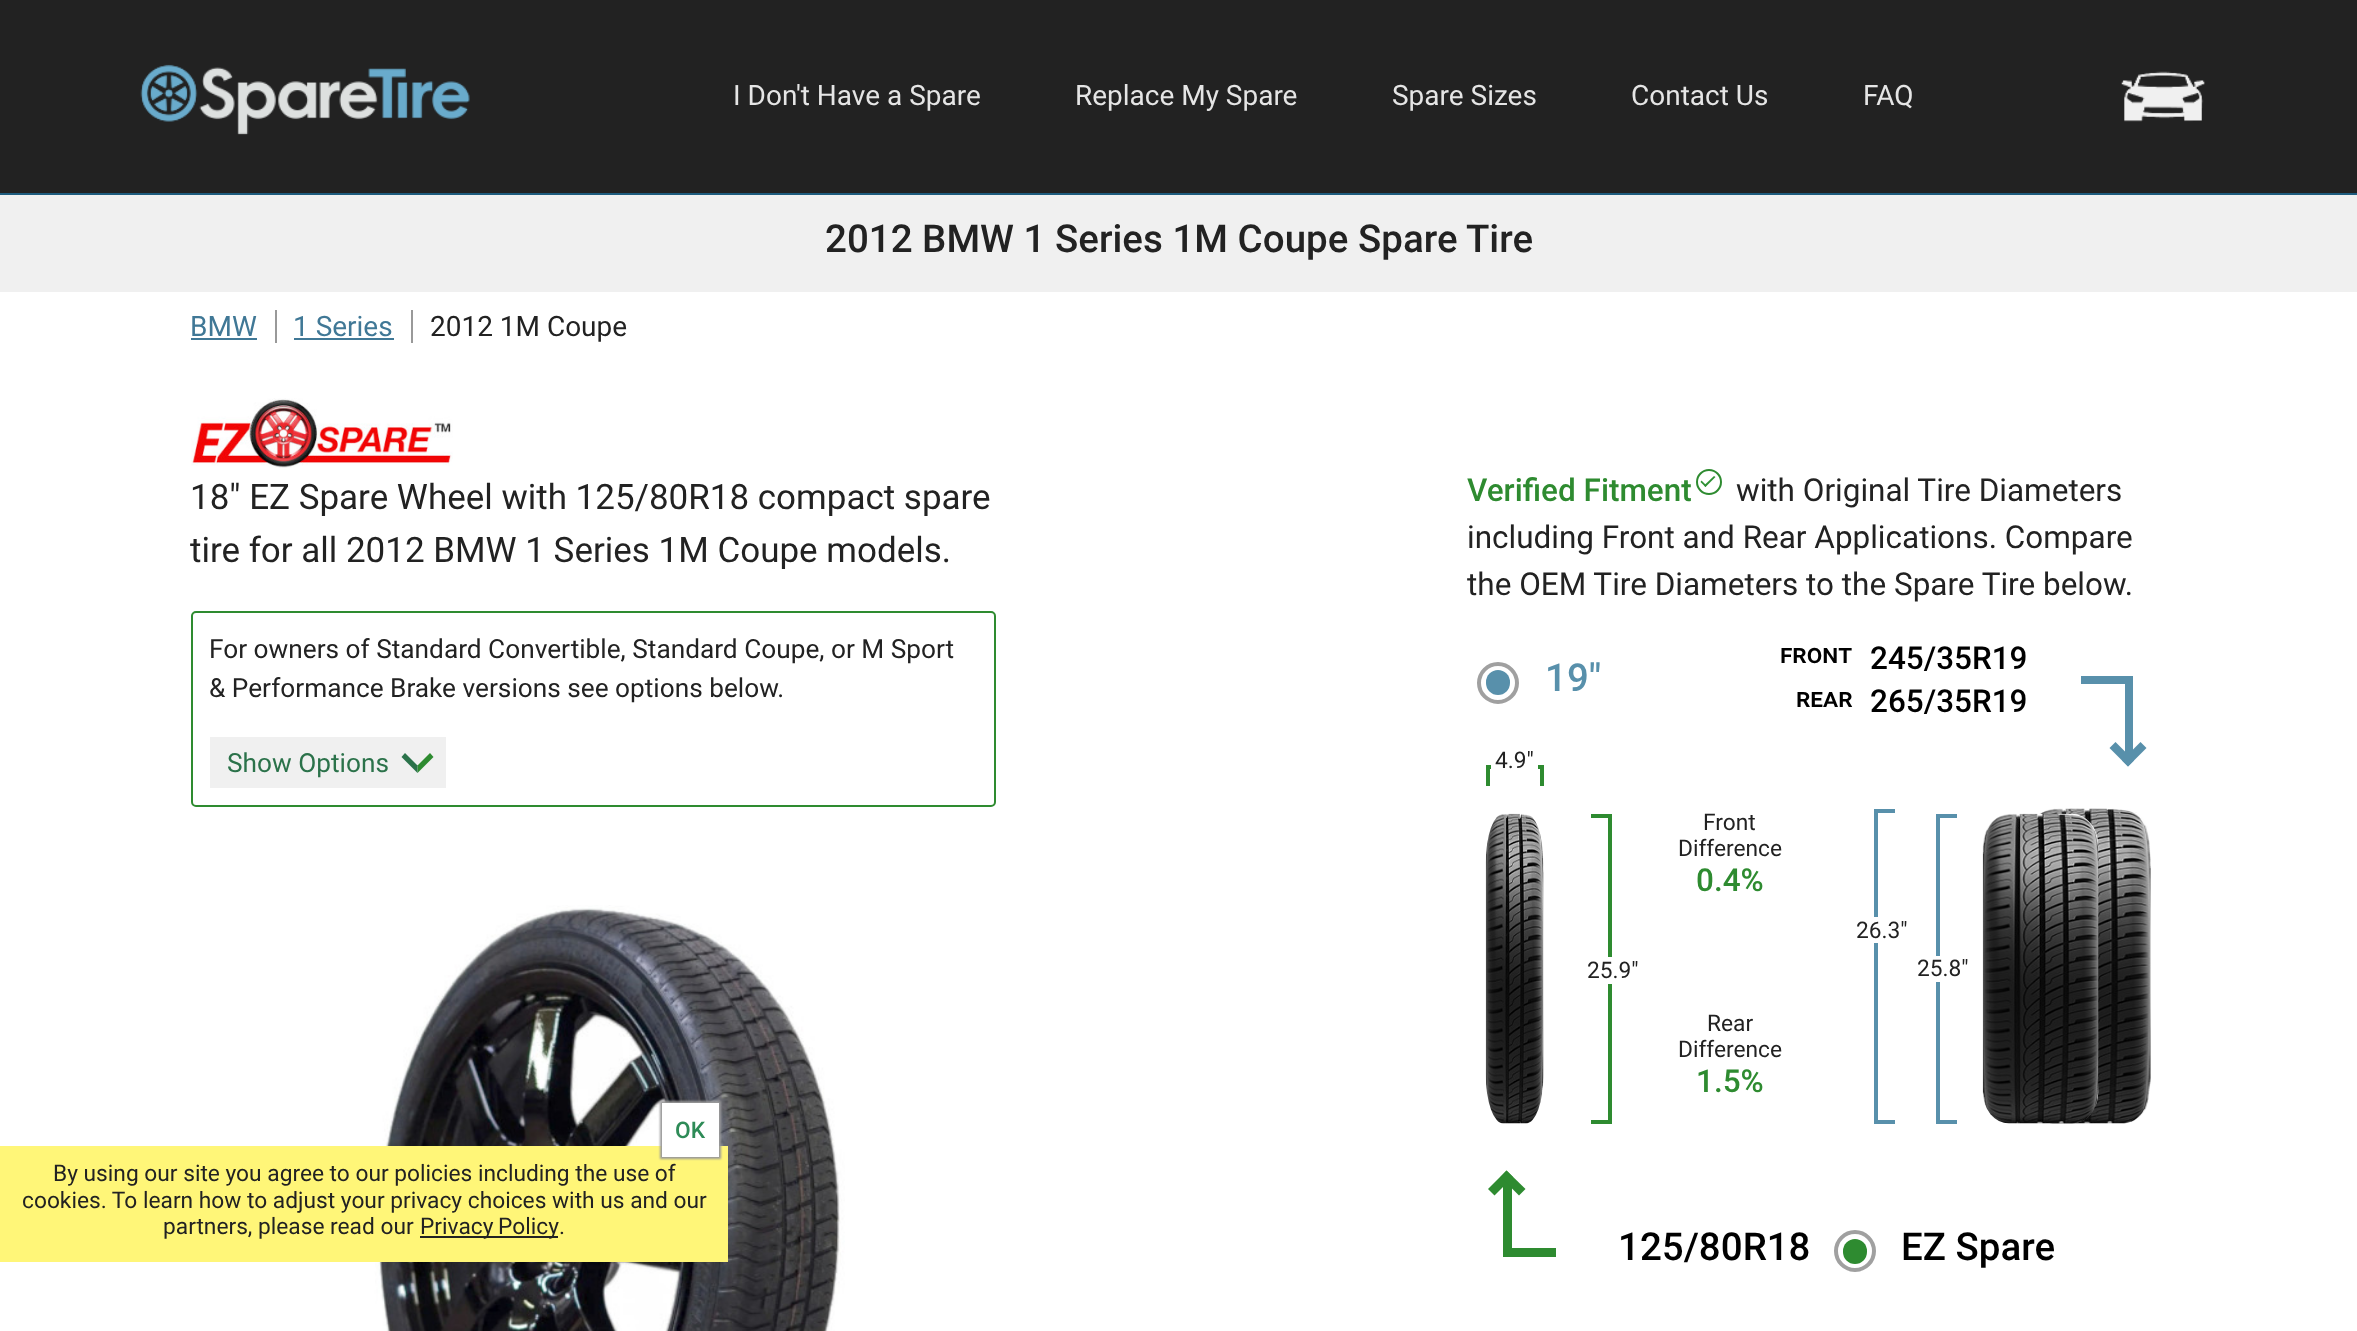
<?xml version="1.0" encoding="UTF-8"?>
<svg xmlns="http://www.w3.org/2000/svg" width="2357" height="1331">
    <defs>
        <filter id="blur1" x="-50%" y="-200%" width="200%" height="500%"><feGaussianBlur stdDeviation="1"/></filter>
    </defs>
    <rect width="100%" height="100%" fill="#FFFFFF"/>
    <rect x="0" y="0" width="2357" height="193" fill="#222222"/>
    <rect x="0" y="193" width="2357" height="2" fill="#1E5C7E"/>
    <image x="140" y="64" width="330" height="71" href="img_01.png"/>
    <text x="733" y="105" font-family="Roboto" font-size="28" fill="#E5E5E5">I Don't Have a Spare</text>
    <text x="1075" y="105" font-family="Roboto" font-size="28" fill="#E5E5E5">Replace My Spare</text>
    <text x="1392" y="105" font-family="Roboto" font-size="28" fill="#E5E5E5">Spare Sizes</text>
    <text x="1631" y="105" font-family="Roboto" font-size="28" fill="#E5E5E5">Contact Us</text>
    <text x="1863" y="105" font-family="Roboto" font-size="28" fill="#E5E5E5">FAQ</text>
    <image x="2121" y="71" width="84" height="51" href="img_02.png"/>
    <rect x="0" y="195" width="2357" height="97" fill="#F0F0F0"/>
    <text x="825" y="252" font-family="Roboto" font-size="38.5" font-weight="500" fill="#222222">2012 BMW 1 Series 1M Coupe Spare Tire</text>
    <text x="190" y="336" font-family="Roboto" font-size="28" fill="#407896">BMW</text>
    <rect x="191" y="338" width="66" height="2" fill="#407896"/>
    <rect x="275" y="310" width="2" height="33" fill="#999999"/>
    <text x="293" y="336" font-family="Roboto" font-size="28" fill="#407896">1 Series</text>
    <rect x="294" y="338" width="100" height="2" fill="#407896"/>
    <rect x="411" y="310" width="2" height="33" fill="#999999"/>
    <text x="430" y="336" font-family="Roboto" font-size="28" fill="#222222">2012 1M Coupe</text>
    <image x="191" y="398" width="262" height="70" href="img_03.png"/>
    <text font-family="Roboto" font-size="35" fill="#222222">
        <tspan x="190" y="509">18" EZ Spare Wheel with 125/80R18 compact spare</tspan>
        <tspan x="190" y="562">tire for all 2012 BMW 1 Series 1M Coupe models.</tspan>
    </text>
    <rect x="192" y="612" width="803" height="194" rx="4" fill="none" stroke="#2E8B30" stroke-width="2"/>
    <text font-family="Roboto" font-size="26.25" fill="#222222">
        <tspan x="209" y="658">For owners of Standard Convertible, Standard Coupe, or M Sport</tspan>
        <tspan x="209" y="697">&amp; Performance Brake versions see options below.</tspan>
    </text>
    <rect x="210" y="737" width="236" height="51" fill="#F0F0F0"/>
    <text x="227" y="772" font-family="Roboto" font-size="26.25" fill="#2B724A">Show Options</text>
    <path d="M 433.5 757 L 417.5 773 V 765.5 L 430 753 Z" fill="#2E8B30"/>
    <path d="M 417.5 773 L 401.5 757 L 405 753 L 417.5 765.5 Z" fill="#2B724A"/>
    <image x="374" y="905" width="471" height="426" href="img_04.png"/>
    <text x="1467" y="501" font-family="Roboto" font-size="31.5" font-weight="500" fill="#2E8B30">Verified Fitment</text>
    <circle cx="1709" cy="482" r="12" fill="none" stroke="#2E8B30" stroke-width="2"/>
    <path d="M 1714 476 L 1715.5 477 L 1705.5 487 L 1704 485.5 Z" fill="#2F9134"/>
    <path d="M 1701.5 480.5 L 1706.5 485.5 L 1705.5 487 L 1700.5 482 Z" fill="#2F9134"/>
    <text x="1736" y="501" font-family="Roboto" font-size="31.5" fill="#222222">with Original Tire Diameters</text>
    <text font-family="Roboto" font-size="31.5" fill="#222222">
        <tspan x="1467" y="548">including Front and Rear Applications. Compare</tspan>
        <tspan x="1467" y="595">the OEM Tire Diameters to the Spare Tire below.</tspan>
    </text>
    <text x="1780" y="663" font-family="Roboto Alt" font-size="26.25" font-weight="500" fill="#000000">Front</text>
    <text x="1870" y="669" font-family="Roboto" font-size="31.5" font-weight="500" fill="#000000">245/35R19</text>
    <circle cx="1498" cy="683" r="19" fill="none" stroke="#A0A0A0" stroke-width="4"/>
    <rect x="1486" y="670" width="24" height="25" rx="12" fill="#5890AB"/>
    <text x="1545" y="691" font-family="Roboto" font-size="38.5" font-weight="500" fill="#5890AB">19"</text>
    <text x="1796" y="707" font-family="Roboto Alt" font-size="26.25" font-weight="500" fill="#000000">Rear</text>
    <text x="1870" y="712" font-family="Roboto" font-size="31.5" font-weight="500" fill="#000000">265/35R19</text>
    <rect x="1486" y="765" width="58" height="4" fill="#2E8B30"/>
    <rect x="1540" y="765" width="4" height="21" fill="#2E8B30"/>
    <rect x="1486" y="765" width="4" height="21" fill="#2E8B30"/>
    <rect x="1491" y="765" width="47" height="4" fill="#FFFFFF"/>
    <text x="1495" y="768" font-family="Roboto" font-size="22.75" fill="#222222">4.9"</text>
    <rect x="2081" y="676" width="52" height="8" fill="#5890AB"/>
    <rect x="2125" y="676" width="8" height="85" fill="#5890AB"/>
    <path d="M 2140.5 742 L 2146.5 748 L 2128 766.5 L 2122 760.5 Z" fill="#5890AB"/>
    <path d="M 2115.5 742 L 2134 760.5 L 2128 766.5 L 2109.5 748 Z" fill="#5890AB"/>
    <image x="1485" y="813" width="59" height="311" href="img_05.png"/>
    <text x="1703" y="830" font-family="Roboto" font-size="22.75" fill="#222222">Front</text>
    <text x="1678" y="856" font-family="Roboto" font-size="22.75" fill="#222222">Difference</text>
    <text x="1696" y="891" font-family="Roboto" font-size="31.5" font-weight="500" fill="#2E8B30">0.4%</text>
    <image x="2038" y="808" width="113" height="316" href="img_06.png"/>
    <rect x="1874" y="809" width="21" height="4" fill="#5890AB"/>
    <rect x="1874" y="1120" width="21" height="4" fill="#5890AB"/>
    <rect x="1874" y="809" width="4" height="315" fill="#5890AB"/>
    <rect x="1874" y="917" width="4" height="26" fill="#FFFFFF"/>
    <text x="1856" y="938" font-family="Roboto" font-size="22.75" fill="#222222">26.3"</text>
    <image x="1982" y="813" width="117" height="311" href="img_07.png"/>
    <rect x="1591" y="814" width="21" height="4" fill="#2E8B30"/>
    <rect x="1608" y="814" width="4" height="310" fill="#2E8B30"/>
    <rect x="1591" y="1120" width="21" height="4" fill="#2E8B30"/>
    <rect x="1608" y="957" width="4" height="27" fill="#FFFFFF"/>
    <text x="1587" y="978" font-family="Roboto" font-size="22.75" fill="#222222">25.9"</text>
    <rect x="1936" y="814" width="21" height="4" fill="#5890AB"/>
    <rect x="1936" y="1120" width="21" height="4" fill="#5890AB"/>
    <rect x="1936" y="814" width="4" height="310" fill="#5890AB"/>
    <rect x="1936" y="956" width="4" height="26" fill="#FFFFFF"/>
    <text x="1917" y="976" font-family="Roboto" font-size="22.75" fill="#222222">25.8"</text>
    <text x="1707" y="1031" font-family="Roboto" font-size="22.75" fill="#222222">Rear</text>
    <text x="1678" y="1057" font-family="Roboto" font-size="22.75" fill="#222222">Difference</text>
    <text x="1696" y="1092" font-family="Roboto" font-size="31.5" font-weight="500" fill="#2E8B30">1.5%</text>
    <rect x="1512" y="1248" width="44" height="9" fill="#2E8B30"/>
    <rect x="1503" y="1183" width="9" height="74" fill="#2E8B30"/>
    <path d="M 1494.5 1195.5 L 1488 1189 L 1506.5 1170.5 L 1513 1177 Z" fill="#2E8B30"/>
    <path d="M 1519 1195.5 L 1500.5 1177 L 1506.5 1170.5 L 1525.5 1189 Z" fill="#2E8B30"/>
    <text x="1618" y="1260" font-family="Roboto" font-size="38.5" font-weight="500" fill="#000000">125/80R18</text>
    <circle cx="1855" cy="1251" r="19" fill="none" stroke="#A0A0A0" stroke-width="4"/>
    <rect x="1843" y="1239" width="24" height="25" rx="12" fill="#2E8B30"/>
    <text x="1901" y="1260" font-family="Roboto" font-size="38.5" font-weight="500" fill="#000000">EZ Spare</text>
    <rect x="0" y="1146" width="728" height="116" fill="#FFF678"/>
    <rect x="660" y="1101" width="61" height="58" fill="#999999" filter="url(#blur1)"/>
    <rect x="662" y="1103" width="57" height="54" fill="#FFFFFF"/>
    <text x="675" y="1138" font-family="Roboto" font-size="22.75" font-weight="500" fill="#2E8B57">OK</text>
    <text x="53" y="1181" font-family="Roboto" font-size="22.75" fill="#222222">By using our site you agree to our policies including the use of</text>
    <text x="22" y="1208" font-family="Roboto" font-size="22.75" fill="#222222">cookies. To learn how to adjust your privacy choices with us and our</text>
    <text x="163" y="1234" font-family="Roboto" font-size="22.75" fill="#222222">partners, please read our</text>
    <rect x="420" y="1236" width="138" height="2" fill="#222222"/>
    <text x="420" y="1234" word-spacing="-1" font-family="Roboto" font-size="22.75" fill="#222222">Privacy Policy</text>
    <text x="559" y="1234" font-family="Roboto" font-size="22.75" fill="#222222">.</text>
</svg>
